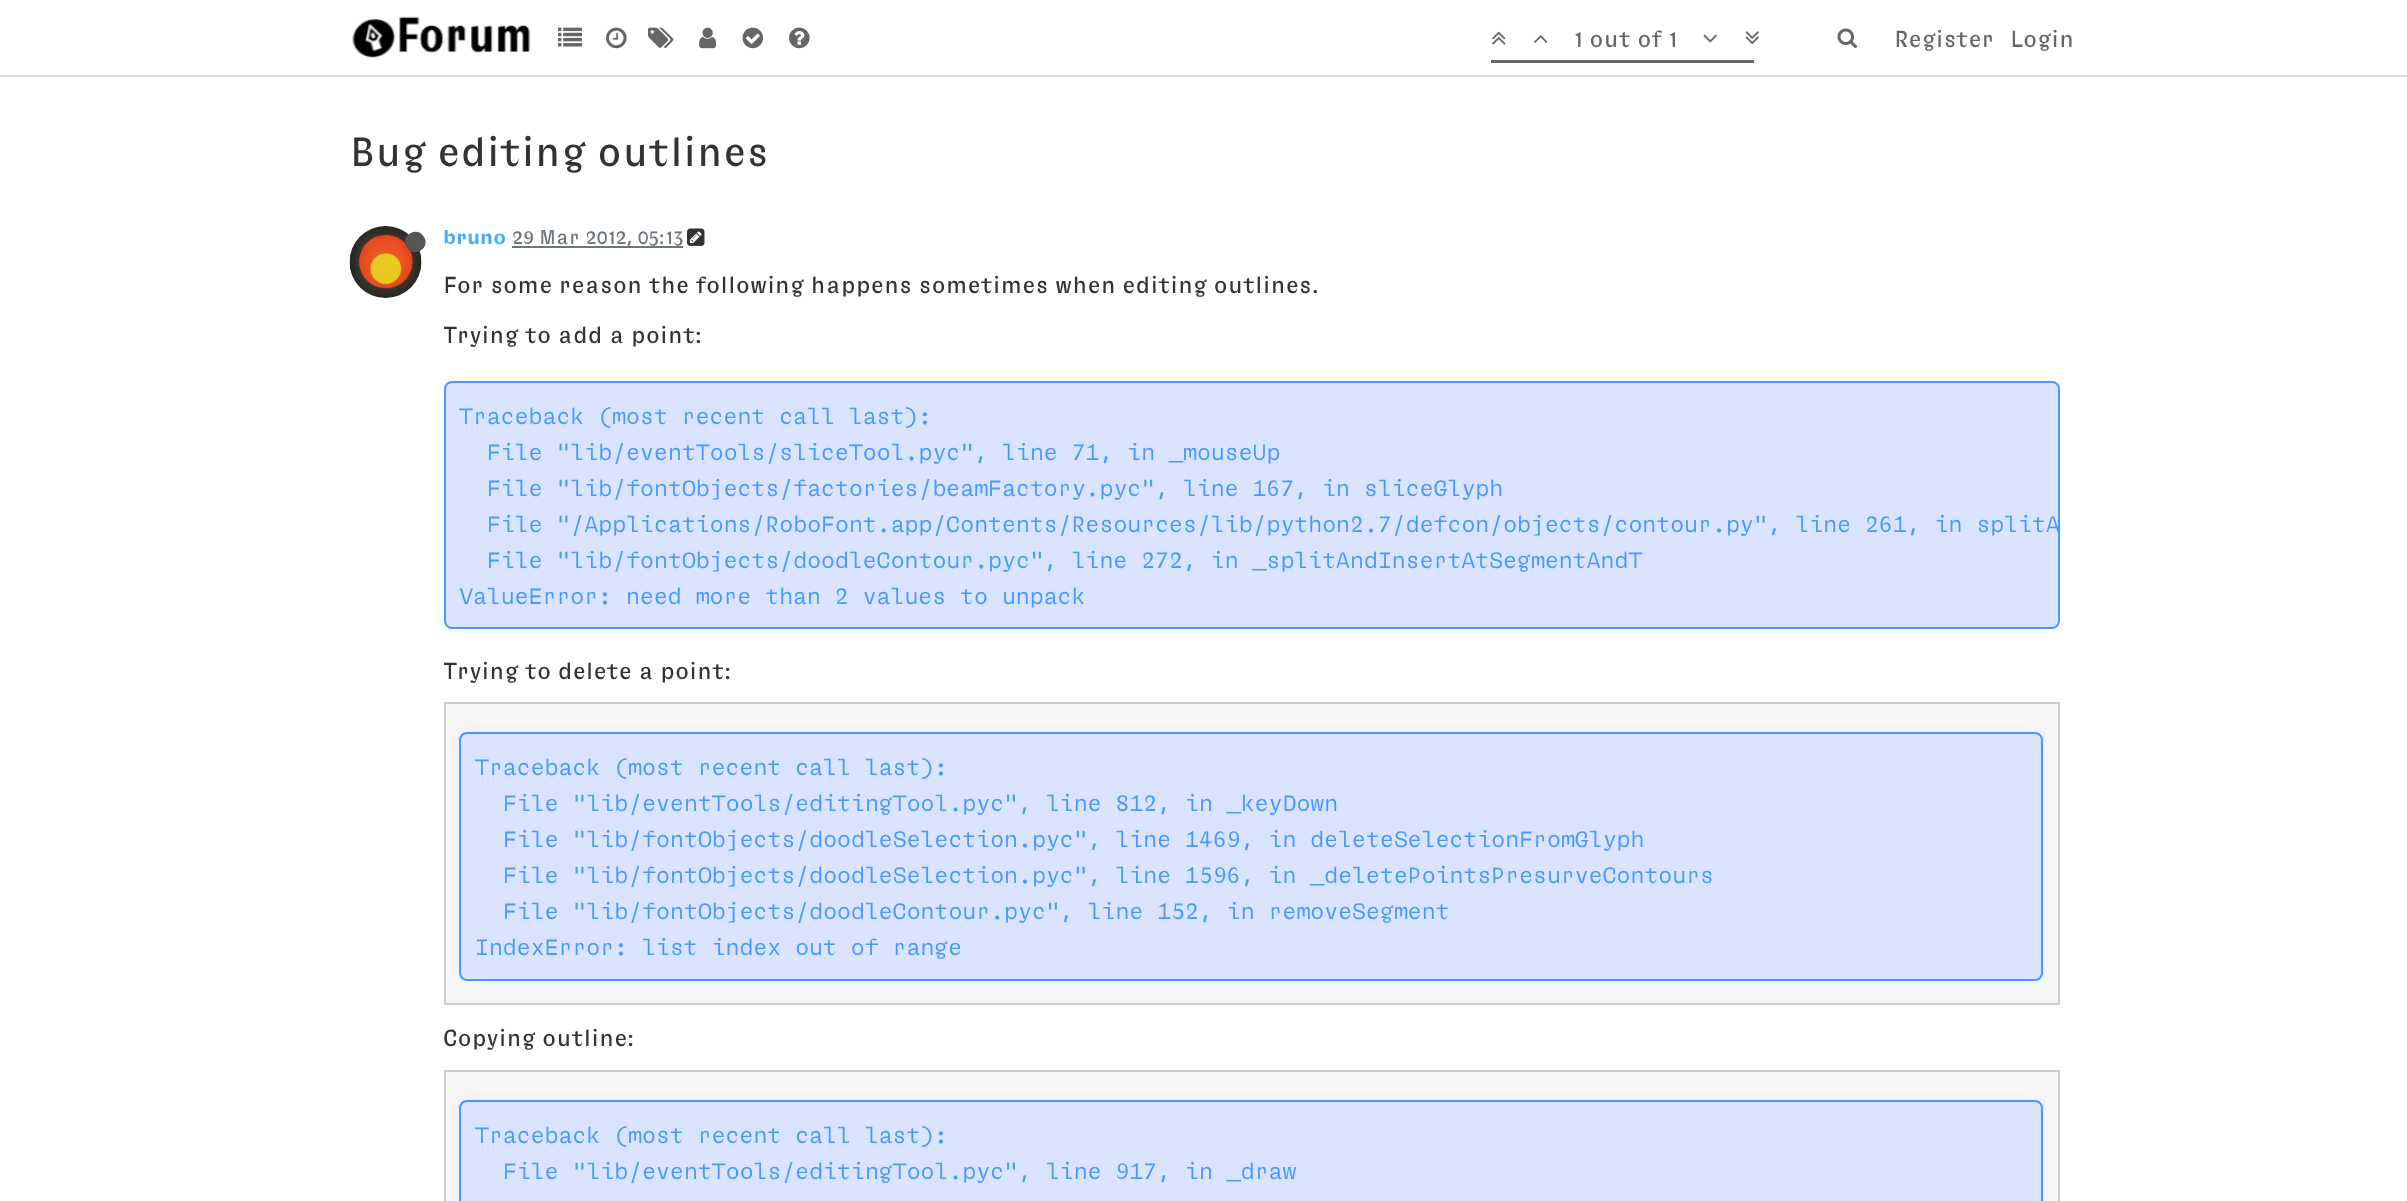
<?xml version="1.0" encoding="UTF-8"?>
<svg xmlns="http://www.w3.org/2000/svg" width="2407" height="1201">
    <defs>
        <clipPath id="clip1"><rect x="444" y="269" width="1616" height="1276"/></clipPath>
        <clipPath id="clip2"><rect x="446" y="383" width="1612" height="244" rx="6"/></clipPath>
    </defs>
    <rect width="100%" height="100%" fill="#FFFFFF"/>
    <rect x="0" y="75" width="2407" height="2" fill="#DDDDDD"/>
    <image x="352" y="16" width="179" height="43" href="img_01.png"/>
    <image x="558" y="27" width="24" height="20" href="img_02.png"/>
    <image x="606" y="27" width="21" height="22" href="img_03.png"/>
    <image x="648" y="27" width="26" height="21" href="img_04.png"/>
    <image x="699" y="27" width="18" height="22" href="img_05.png"/>
    <image x="742" y="27" width="22" height="22" href="img_06.png"/>
    <image x="789" y="27" width="21" height="22" href="img_07.png"/>
    <image x="1492" y="31" width="14" height="14" href="img_08.png"/>
    <image x="1534" y="35" width="14" height="8" href="img_09.png"/>
    <text x="1574" y="47" font-family="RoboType" font-size="24" fill="#666666">1 out of 1</text>
    <image x="1703" y="34" width="14" height="9" href="img_10.png"/>
    <image x="1745" y="31" width="14" height="14" href="img_11.png"/>
    <rect x="1491" y="60" width="263" height="3" fill="#666666"/>
    <image x="1837" y="28" width="20" height="20" href="img_12.png"/>
    <text x="1894" y="47" font-family="RoboType" font-size="24" fill="#666666">Register</text>
    <text x="2010" y="47" font-family="RoboType" font-size="24" fill="#666666">Login</text>
    <text x="349" y="166" font-family="RoboType" font-size="42" fill="#333333">Bug editing outlines</text>
    <image x="349" y="226" width="73" height="72" href="img_13.png"/>
    <path d="M 424 237 C 431 248.5 413 259 406.5 247 C 399.5 235.5 417.5 225 424 237 Z" fill="#555555"/>
    <text x="443" y="244" font-family="RoboType" font-size="20.5" font-weight="700" fill="#47AAFF">bruno</text>
    <rect x="512" y="246" width="171" height="2" fill="#6C757D"/>
    <text x="512" y="244" font-family="RoboType" font-size="20.5" fill="#6C757D">29 Mar 2012, 05:13</text>
    <image x="687" y="228" width="18" height="18" href="img_14.png"/>
    <text x="443" y="293" font-family="RoboType" font-size="24" fill="#333333">For some reason the following happens sometimes when editing outlines.</text>
    <g clip-path="url(#clip1)">
        <text x="443" y="343" font-family="RoboType" font-size="24" fill="#333333">Trying to add a point:</text>
    </g>
    <rect x="445" y="382" width="1614" height="246" rx="7" fill="#DBE4FF" stroke="#4998FF" stroke-width="2"/>
    <text x="459" y="424" font-family="RoboType" font-size="24" font-weight="300" fill="#4998FF">Traceback (most recent call last):</text>
    <text font-family="RoboType" font-size="24" font-weight="300" fill="#4998FF">
        <tspan x="487" y="460">File "lib/eventTools/sliceTool.pyc", line 71, in _mouseUp</tspan>
        <tspan x="487" y="496">File "lib/fontObjects/factories/beamFactory.pyc", line 167, in sliceGlyph</tspan>
    </text>
    <g clip-path="url(#clip2)">
        <text x="487" y="532" font-family="RoboType" font-size="24" font-weight="300" fill="#4998FF">File "/Applications/RoboFont.app/Contents/Resources/lib/python2.7/defcon/objects/contour.py", line 261, in splitA</text>
    </g>
    <text x="487" y="568" font-family="RoboType" font-size="24" font-weight="300" fill="#4998FF">File "lib/fontObjects/doodleContour.pyc", line 272, in _splitAndInsertAtSegmentAndT</text>
    <text x="459" y="604" font-family="RoboType" font-size="24" font-weight="300" fill="#4998FF">ValueError: need more than 2 values to unpack</text>
    <g clip-path="url(#clip1)">
        <text x="443" y="679" font-family="RoboType" font-size="24" fill="#333333">Trying to delete a point:</text>
    </g>
    <rect x="445" y="703" width="1614" height="301" fill="#F5F5F5" stroke="#CCCCCC" stroke-width="2"/>
    <rect x="460" y="733" width="1582" height="247" rx="7" fill="#DBE4FF" stroke="#4998FF" stroke-width="2"/>
    <text x="475" y="775" font-family="RoboType" font-size="24" font-weight="300" fill="#4998FF">Traceback (most recent call last):</text>
    <text font-family="RoboType" font-size="24" font-weight="300" fill="#4998FF">
        <tspan x="503" y="811">File "lib/eventTools/editingTool.pyc", line 812, in _keyDown</tspan>
        <tspan x="503" y="847">File "lib/fontObjects/doodleSelection.pyc", line 1469, in deleteSelectionFromGlyph</tspan>
        <tspan x="503" y="883">File "lib/fontObjects/doodleSelection.pyc", line 1596, in _deletePointsPresurveContours</tspan>
        <tspan x="503" y="919">File "lib/fontObjects/doodleContour.pyc", line 152, in removeSegment</tspan>
    </text>
    <text x="475" y="955" font-family="RoboType" font-size="24" font-weight="300" fill="#4998FF">IndexError: list index out of range</text>
    <text x="443" y="1046" font-family="RoboType" font-size="24" fill="#333333">Copying outline:</text>
    <rect x="445" y="1071" width="1614" height="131" fill="#F5F5F5" stroke="#CCCCCC" stroke-width="2"/>
    <rect x="460" y="1101" width="1582" height="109" rx="7" fill="#DBE4FF" stroke="#4998FF" stroke-width="2"/>
    <text x="475" y="1143" font-family="RoboType" font-size="24" font-weight="300" fill="#4998FF">Traceback (most recent call last):</text>
    <text x="503" y="1179" font-family="RoboType" font-size="24" font-weight="300" fill="#4998FF">File "lib/eventTools/editingTool.pyc", line 917, in _draw</text>
</svg>
